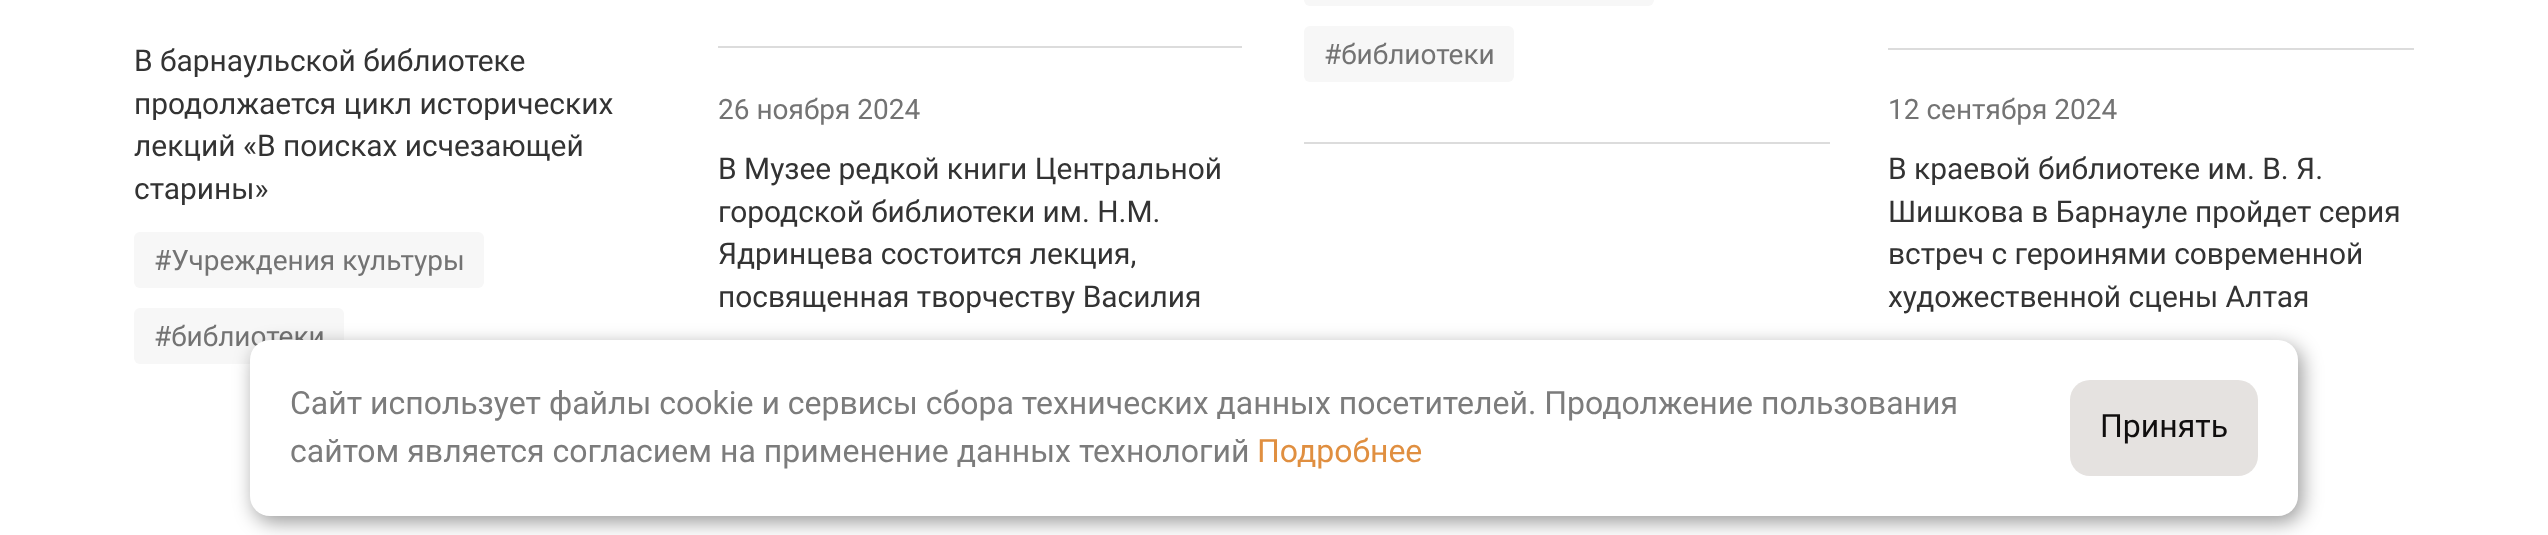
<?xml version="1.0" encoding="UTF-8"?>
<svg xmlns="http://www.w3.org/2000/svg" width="2548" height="535">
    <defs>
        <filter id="blur1" x="-50%" y="-200%" width="200%" height="500%"><feGaussianBlur stdDeviation="10"/></filter>
    </defs>
    <rect width="100%" height="100%" fill="#FFFFFF"/>
    <rect x="718" y="46" width="524" height="2" fill="#DCDCDC"/>
    <rect x="1304" y="142" width="526" height="2" fill="#DCDCDC"/>
    <rect x="1304" y="-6" width="350" height="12" rx="6" fill="#F7F7F7"/>
    <rect x="1304" y="26" width="210" height="56" rx="6" fill="#F7F7F7"/>
    <text x="1324" y="64" font-family="Roboto" font-size="28" fill="#737373">#библиотеки</text>
    <text font-family="Roboto" font-size="29.9" fill="#333333">
        <tspan x="134" y="71">В барнаульской библиотеке</tspan>
        <tspan x="134" y="114">продолжается цикл исторических</tspan>
        <tspan x="134" y="156">лекций «В поисках исчезающей</tspan>
        <tspan x="134" y="199">старины»</tspan>
    </text>
    <rect x="134" y="232" width="350" height="56" rx="6" fill="#F7F7F7"/>
    <text x="154" y="270" font-family="Roboto" font-size="28" fill="#737373">#Учреждения культуры</text>
    <rect x="134" y="308" width="210" height="56" rx="6" fill="#F7F7F7"/>
    <text x="154" y="346" font-family="Roboto" font-size="28" fill="#737373">#библиотеки</text>
    <rect x="1888" y="48" width="526" height="2" fill="#DCDCDC"/>
    <text x="718" y="119" font-family="Roboto" font-size="28" fill="#737373">26 ноября 2024</text>
    <text font-family="Roboto" font-size="29.9" fill="#333333">
        <tspan x="718" y="179">В Музее редкой книги Центральной</tspan>
        <tspan x="718" y="222">городской библиотеки им. Н.М.</tspan>
        <tspan x="718" y="264">Ядринцева состоится лекция,</tspan>
        <tspan x="718" y="307">посвященная творчеству Василия</tspan>
    </text>
    <text x="1888" y="119" font-family="Roboto" font-size="28" fill="#737373">12 сентября 2024</text>
    <text font-family="Roboto" font-size="29.9" fill="#333333">
        <tspan x="1888" y="179">В краевой библиотеке им. В. Я.</tspan>
        <tspan x="1888" y="222">Шишкова в Барнауле пройдет серия</tspan>
        <tspan x="1888" y="264">встреч с героинями современной</tspan>
        <tspan x="1888" y="307">художественной сцены Алтая</tspan>
    </text>
    <rect x="254" y="346" width="2048" height="176" rx="20" fill="#000000" fill-opacity="0.4" filter="url(#blur1)"/>
    <rect x="250" y="340" width="2048" height="176" rx="20" fill="#FFFFFF"/>
    <text font-family="Roboto" font-size="32" fill="#7C7C7C">
        <tspan x="290" y="414">Сайт использует файлы cookie и сервисы сбора технических данных посетителей. Продолжение пользования</tspan>
        <tspan x="290" y="462">сайтом является согласием на применение данных технологий</tspan>
    </text>
    <text x="1257" y="462" font-family="Roboto" font-size="32" fill="#E08F40">Подробнее</text>
    <rect x="2070" y="380" width="188" height="96" rx="20" fill="#E5E2E0"/>
    <text x="2100" y="437" font-family="Roboto" font-size="32" fill="#100E0E">Принять</text>
</svg>
